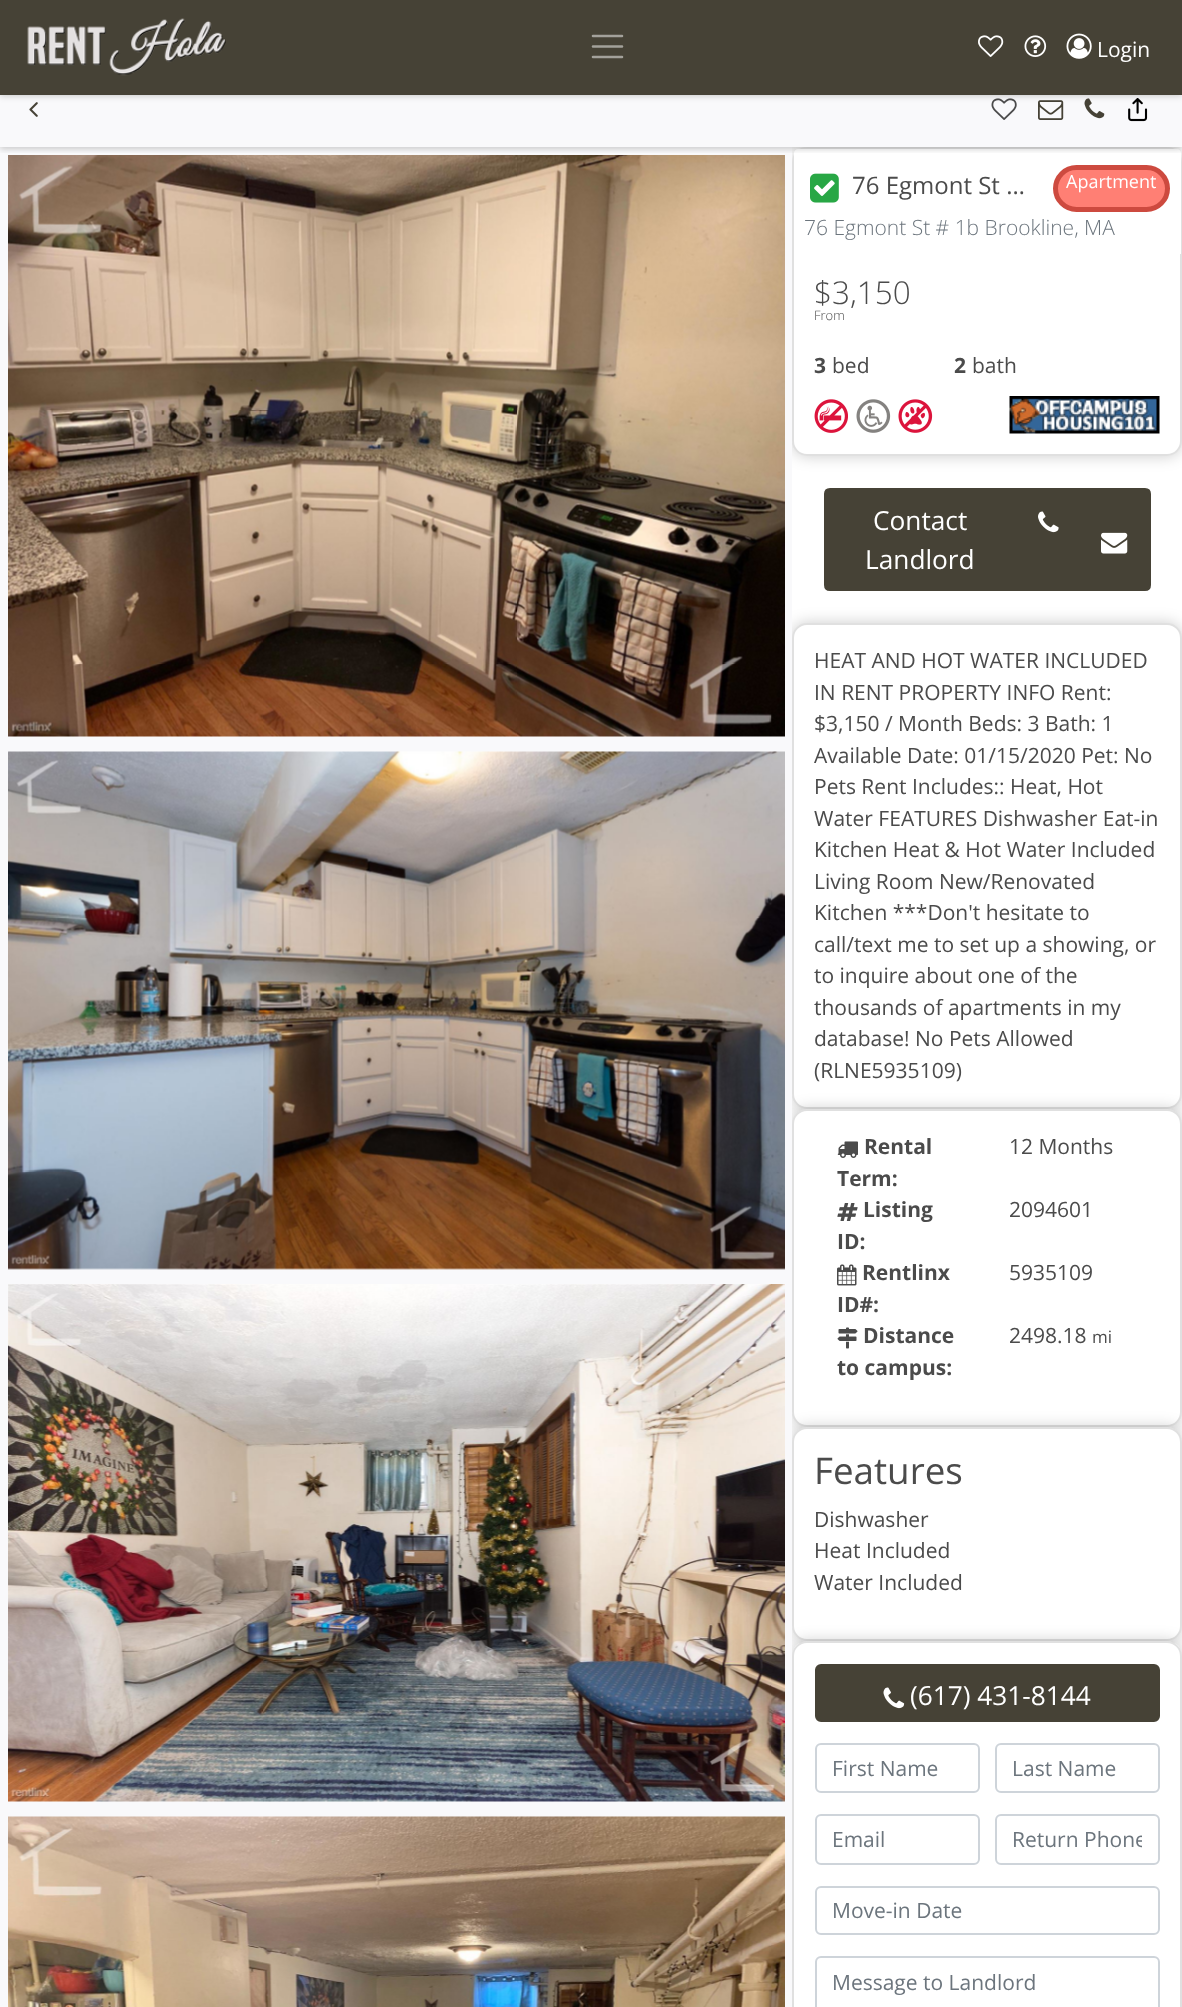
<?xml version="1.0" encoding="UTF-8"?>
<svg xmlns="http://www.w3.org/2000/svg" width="1182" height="2007">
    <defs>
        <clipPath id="clip1"><rect x="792" y="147" width="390" height="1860"/></clipPath>
        <filter id="blur1" x="-50%" y="-200%" width="200%" height="500%"><feGaussianBlur stdDeviation="7.5"/></filter>
        <clipPath id="clip2"><rect x="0" y="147" width="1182" height="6"/></clipPath>
        <filter id="blur2" x="-50%" y="-200%" width="200%" height="500%"><feGaussianBlur stdDeviation="3"/></filter>
        <clipPath id="clip3"><rect x="1011" y="1824" width="131" height="29"/></clipPath>
    </defs>
    <rect width="100%" height="100%" fill="#F9F9FB"/>
    <rect x="792" y="147" width="390" height="1509" fill="#FFFFFF"/>
    <image x="8" y="155" width="777" height="582" href="img_10.png"/>
    <g clip-path="url(#clip1)">
        <rect x="792" y="147" width="390" height="309" rx="15" fill="#000000" fill-opacity="0.2" filter="url(#blur1)"/>
    </g>
    <rect x="792" y="147" width="390" height="309" rx="15" fill="#FFFFFF"/>
    <rect x="793" y="148" width="388" height="307" rx="14" fill="none" stroke="#000000" stroke-opacity="0.12" stroke-width="2"/>
    <path d="M 798 149 H 1177 C 1179 149 1181 151 1181 153 V 254 H 794 V 153 C 794 151 796 149 798 149 Z" fill="#FFFFFF"/>
    <g clip-path="url(#clip2)">
        <rect x="0" y="75" width="1182" height="74" fill="#000000" fill-opacity="0.2" filter="url(#blur2)"/>
    </g>
    <image x="29" y="102" width="9" height="15" href="img_05.png"/>
    <image x="991" y="98" width="26" height="22" href="img_06.png"/>
    <image x="1038" y="100" width="26" height="20" href="img_07.png"/>
    <image x="1084" y="98" width="21" height="21" href="img_08.png"/>
    <image x="1128" y="98" width="20" height="24" href="img_09.png"/>
    <rect x="0" y="2" width="1182" height="94" fill="#000000" fill-opacity="0.2" filter="url(#blur2)"/>
    <rect x="0" y="0" width="1182" height="95" fill="#464236"/>
    <image x="27" y="18" width="199" height="58" href="img_01.png"/>
    <path d="M 593 36 H 622 M 593 46.5 H 622 M 593 57 H 622" fill="none" stroke="#A3A19B" stroke-width="2.6" stroke-linecap="round"/>
    <image x="978" y="35" width="26" height="22" href="img_02.png"/>
    <image x="1024" y="35" width="23" height="22" href="img_03.png"/>
    <image x="1066" y="33" width="26" height="26" href="img_04.png"/>
    <text x="1097" y="57" font-family="Open Sans" font-size="21" fill="#FFFFFF">Login</text>
    <image x="8" y="751" width="777" height="519" href="img_11.png"/>
    <image x="8" y="1284" width="777" height="518" href="img_12.png"/>
    <image x="8" y="1816" width="777" height="191" href="img_13.png"/>
    <image x="810" y="173" width="29" height="30" href="img_14.png"/>
    <text x="852" y="194" font-family="Open Sans" font-size="24" fill="#4B4B4B">76 Egmont St …</text>
    <rect x="1055.5" y="167.5" width="112" height="42" rx="21" fill="#FF7F74" stroke="#CD4A3F" stroke-width="5"/>
    <text x="1066" y="188" font-family="Open Sans" font-size="18" fill="#FFFFFF">Apartment</text>
    <text x="804" y="235" font-family="Open Sans" font-size="21" font-weight="300" fill="#6C757D">76 Egmont St # 1b Brookline, MA</text>
    <text x="814" y="304" font-family="Open Sans" font-size="31.5" font-weight="300" fill="#4B4B4B">$3,150</text>
    <text x="814" y="320" font-family="Open Sans" font-size="13" font-weight="300" fill="#4B4B4B">From</text>
    <text x="814" y="373" font-family="Open Sans" font-size="21" font-weight="700" fill="#4B4B4B">3</text>
    <text x="832" y="373" font-family="Open Sans" font-size="21" fill="#4B4B4B">bed</text>
    <text x="954" y="373" font-family="Open Sans" font-size="21" font-weight="700" fill="#4B4B4B">2</text>
    <text x="972" y="373" font-family="Open Sans" font-size="21" fill="#4B4B4B">bath</text>
    <image x="814" y="399" width="34" height="34" href="img_15.png"/>
    <image x="856" y="399" width="35" height="34" href="img_16.png"/>
    <image x="898" y="399" width="35" height="34" href="img_17.png"/>
    <image x="1009" y="396" width="151" height="38" href="img_18.png"/>
    <path d="M 830 489 H 1016 V 590 H 830 C 827 590 825 588 825 585 V 494 C 825 491 827 489 830 489 Z" fill="#464236" stroke="#464236" stroke-width="2"/>
    <text x="873" y="530" font-family="Open Sans" font-size="26.25" fill="#FFFFFF">Contact</text>
    <text x="865" y="569" font-family="Open Sans" font-size="26.25" fill="#FFFFFF">Landlord</text>
    <rect x="1017" y="488" width="62" height="103" fill="#464236"/>
    <image x="1038" y="511" width="21" height="22" href="img_19.png"/>
    <path d="M 1080 489 H 1145 C 1148 489 1150 491 1150 494 V 585 C 1150 588 1148 590 1145 590 H 1080 Z" fill="#464236" stroke="#464236" stroke-width="2"/>
    <image x="1101" y="532" width="27" height="22" href="img_20.png"/>
    <g clip-path="url(#clip1)">
        <rect x="792" y="623" width="390" height="486" rx="15" fill="#000000" fill-opacity="0.2" filter="url(#blur1)"/>
    </g>
    <rect x="792" y="623" width="390" height="486" rx="15" fill="#FFFFFF"/>
    <rect x="793" y="624" width="388" height="484" rx="14" fill="none" stroke="#000000" stroke-opacity="0.12" stroke-width="2"/>
    <text font-family="Open Sans" font-size="21" fill="#4B4B4B">
        <tspan x="814" y="668">HEAT AND HOT WATER INCLUDED</tspan>
        <tspan x="814" y="700">IN RENT PROPERTY INFO Rent:</tspan>
        <tspan x="814" y="731">$3,150 / Month Beds: 3 Bath: 1</tspan>
        <tspan x="814" y="763">Available Date: 01/15/2020 Pet: No</tspan>
        <tspan x="814" y="794">Pets Rent Includes:: Heat, Hot</tspan>
        <tspan x="814" y="826">Water FEATURES Dishwasher Eat-in</tspan>
        <tspan x="814" y="857">Kitchen Heat &amp; Hot Water Included</tspan>
        <tspan x="814" y="889">Living Room New/Renovated</tspan>
        <tspan x="814" y="920">Kitchen ***Don't hesitate to</tspan>
        <tspan x="814" y="952">call/text me to set up a showing, or</tspan>
        <tspan x="814" y="983">to inquire about one of the</tspan>
        <tspan x="814" y="1015">thousands of apartments in my</tspan>
        <tspan x="814" y="1046">database! No Pets Allowed</tspan>
        <tspan x="814" y="1078">(RLNE5935109)</tspan>
    </text>
    <g clip-path="url(#clip1)">
        <rect x="792" y="1109" width="390" height="318" rx="15" fill="#000000" fill-opacity="0.2" filter="url(#blur1)"/>
    </g>
    <rect x="792" y="1109" width="390" height="318" rx="15" fill="#FFFFFF"/>
    <rect x="793" y="1110" width="388" height="316" rx="14" fill="none" stroke="#000000" stroke-opacity="0.12" stroke-width="2"/>
    <image x="837" y="1141" width="21" height="17" href="img_21.png"/>
    <text x="864" y="1154" font-family="Open Sans" font-size="21" font-weight="700" fill="#4B4B4B">Rental</text>
    <text x="837" y="1186" font-family="Open Sans" font-size="21" font-weight="700" fill="#4B4B4B">Term:</text>
    <text x="1009" y="1154" font-family="Open Sans" font-size="21" fill="#4B4B4B">12 Months</text>
    <image x="837" y="1203" width="21" height="18" href="img_22.png"/>
    <text x="863" y="1217" font-family="Open Sans" font-size="21" font-weight="700" fill="#4B4B4B">Listing</text>
    <text x="837" y="1249" font-family="Open Sans" font-size="21" font-weight="700" fill="#4B4B4B">ID:</text>
    <text x="1009" y="1217" font-family="Open Sans" font-size="21" fill="#4B4B4B">2094601</text>
    <image x="837" y="1264" width="20" height="22" href="img_23.png"/>
    <text x="862" y="1280" font-family="Open Sans" font-size="21" font-weight="700" fill="#4B4B4B">Rentlinx</text>
    <text x="837" y="1312" font-family="Open Sans" font-size="21" font-weight="700" fill="#4B4B4B">ID#:</text>
    <text x="1009" y="1280" font-family="Open Sans" font-size="21" fill="#4B4B4B">5935109</text>
    <image x="837" y="1327" width="21" height="22" href="img_24.png"/>
    <text x="863" y="1343" font-family="Open Sans" font-size="21" font-weight="700" fill="#4B4B4B">Distance</text>
    <text x="837" y="1375" font-family="Open Sans" font-size="21" font-weight="700" fill="#4B4B4B">to campus:</text>
    <text x="1009" y="1343" font-family="Open Sans" font-size="21" fill="#4B4B4B">2498.18</text>
    <text x="1092" y="1343" font-family="Open Sans" font-size="17" fill="#4B4B4B">mi</text>
    <g clip-path="url(#clip1)">
        <rect x="792" y="1427" width="390" height="214" rx="15" fill="#000000" fill-opacity="0.2" filter="url(#blur1)"/>
    </g>
    <rect x="792" y="1427" width="390" height="214" rx="15" fill="#FFFFFF"/>
    <rect x="793" y="1428" width="388" height="212" rx="14" fill="none" stroke="#000000" stroke-opacity="0.12" stroke-width="2"/>
    <text x="814" y="1484" font-family="Open Sans" font-size="36.75" fill="#4B4B4B">Features</text>
    <text font-family="Open Sans" font-size="21" fill="#4B4B4B">
        <tspan x="814" y="1527">Dishwasher</tspan>
        <tspan x="814" y="1558">Heat Included</tspan>
        <tspan x="814" y="1590">Water Included</tspan>
    </text>
    <g clip-path="url(#clip1)">
        <rect x="792" y="1641" width="390" height="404" rx="15" fill="#000000" fill-opacity="0.2" filter="url(#blur1)"/>
    </g>
    <path d="M 807 1641 H 1167 C 1175.5 1641 1182 1647.5 1182 1656 V 2007 H 792 V 1656 C 792 1647.5 798.5 1641 807 1641 Z" fill="#FFFFFF"/>
    <rect x="793" y="1642" width="388" height="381" rx="14" fill="none" stroke="#000000" stroke-opacity="0.12" stroke-width="2"/>
    <rect x="816" y="1665" width="343" height="56" rx="5" fill="#464236" stroke="#464236" stroke-width="2"/>
    <image x="883" y="1687" width="22" height="22" href="img_25.png"/>
    <text x="910" y="1705" font-family="Open Sans" font-size="26.25" fill="#FFFFFF">(617) 431-8144</text>
    <rect x="816" y="1744" width="163" height="48" rx="5" fill="none" stroke="#CED4DA" stroke-width="2"/>
    <text x="832" y="1776" font-family="Open Sans" font-size="21" fill="#6C757D">First Name</text>
    <rect x="996" y="1744" width="163" height="48" rx="5" fill="none" stroke="#CED4DA" stroke-width="2"/>
    <text x="1012" y="1776" font-family="Open Sans" font-size="21" fill="#6C757D">Last Name</text>
    <rect x="816" y="1815" width="163" height="49" rx="5" fill="none" stroke="#CED4DA" stroke-width="2"/>
    <text x="832" y="1847" font-family="Open Sans" font-size="21" fill="#6C757D">Email</text>
    <rect x="996" y="1815" width="163" height="49" rx="5" fill="none" stroke="#CED4DA" stroke-width="2"/>
    <g clip-path="url(#clip3)">
        <text x="1012" y="1847" font-family="Open Sans" font-size="21" fill="#6C757D">Return Phone</text>
    </g>
    <rect x="816" y="1887" width="343" height="47" rx="5" fill="none" stroke="#CED4DA" stroke-width="2"/>
    <text x="832" y="1918" font-family="Open Sans" font-size="21" fill="#6C757D">Move-in Date</text>
    <rect x="816" y="1957" width="343" height="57" rx="5" fill="none" stroke="#CED4DA" stroke-width="2"/>
    <text x="832" y="1990" font-family="Open Sans" font-size="21" fill="#6C757D">Message to Landlord</text>
</svg>
